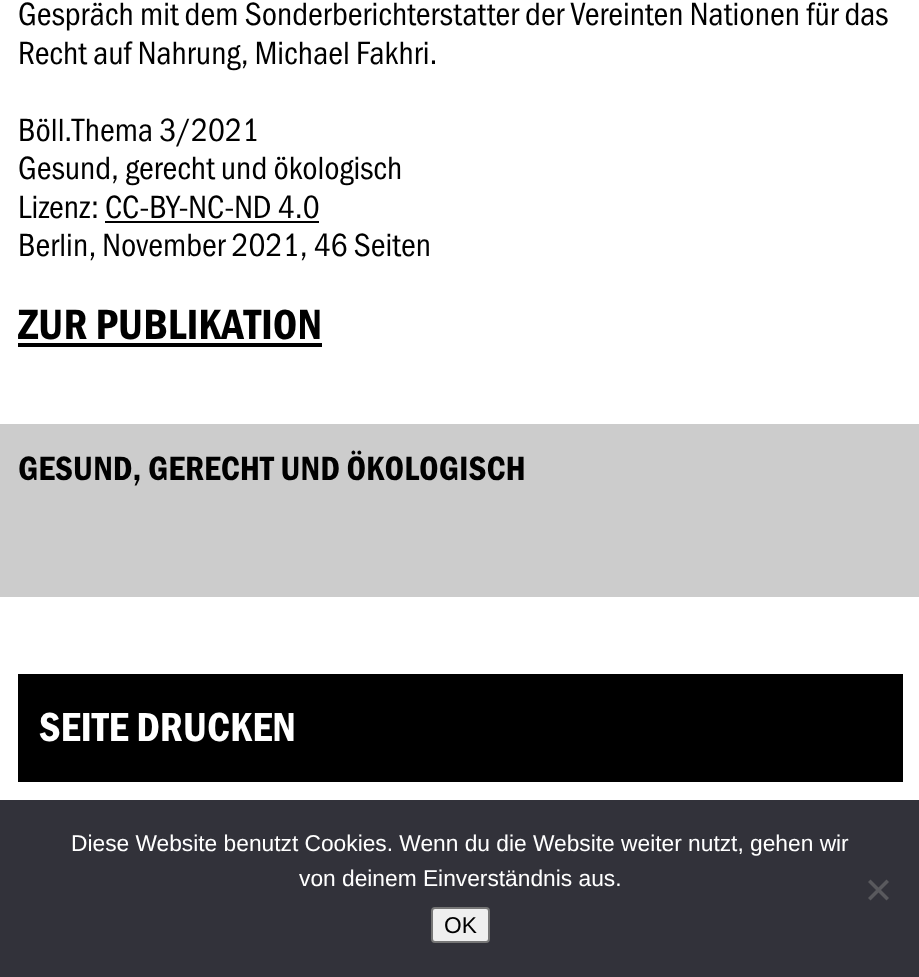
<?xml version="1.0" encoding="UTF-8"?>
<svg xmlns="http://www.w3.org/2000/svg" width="919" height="977">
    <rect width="100%" height="100%" fill="#FFFFFF"/>
    <text font-family="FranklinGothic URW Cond" font-size="33.25" fill="#000000">
        <tspan x="18" y="25">Gespräch mit dem Sonderberichterstatter der Vereinten Nationen für das</tspan>
        <tspan x="18" y="64">Recht auf Nahrung, Michael Fakhri.</tspan>
    </text>
    <text font-family="FranklinGothic URW Cond" font-size="33.25" fill="#000000">
        <tspan x="18" y="141">Böll.Thema 3/2021</tspan>
        <tspan x="18" y="179">Gesund, gerecht und ökologisch</tspan>
        <tspan x="18" y="218">Lizenz: CC-BY-NC-ND 4.0</tspan>
    </text>
    <rect x="105" y="221" width="214" height="2" fill="#000000"/>
    <text x="18" y="256" font-family="FranklinGothic URW Cond" font-size="33.25" fill="#000000">Berlin, November 2021, 46 Seiten</text>
    <text x="18" y="339" font-family="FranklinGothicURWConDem" font-size="43.75" fill="#000000">ZUR PUBLIKATION</text>
    <rect x="18" y="343" width="304" height="4" fill="#000000"/>
    <rect x="0" y="424" width="919" height="173" fill="#CCCCCC"/>
    <text x="18" y="480" font-family="FranklinGothicURWConDem" font-size="35" fill="#000000">GESUND, GERECHT UND ÖKOLOGISCH</text>
    <rect x="18" y="674" width="885" height="108" fill="#000000"/>
    <text x="39" y="741" font-family="FranklinGothicURWConDem" font-size="42" fill="#FFFFFF">SEITE DRUCKEN</text>
    <rect x="0" y="800" width="919" height="177" fill="#32323A"/>
    <text x="71" y="851" font-family="Liberation Sans" font-size="22.75" fill="#FFFFFF">Diese Website benutzt Cookies. Wenn du die Website weiter nutzt, gehen wir</text>
    <text x="299" y="886" font-family="Liberation Sans" font-size="22.75" fill="#FFFFFF">von deinem Einverständnis aus.</text>
    <path d="M 886.5 879.5 L 889 882 L 870.5 900.5 L 868 898 Z" fill="#59595D"/>
    <path d="M 868 882 L 870.5 879.5 L 889 898 L 886.5 900.5 Z" fill="#59595D"/>
    <rect x="432" y="908" width="57" height="34" rx="3" fill="#EFEFEF" stroke="#767676" stroke-width="2"/>
    <text x="444" y="933" font-family="Liberation Sans" font-size="22.75" fill="#000000">OK</text>
</svg>
